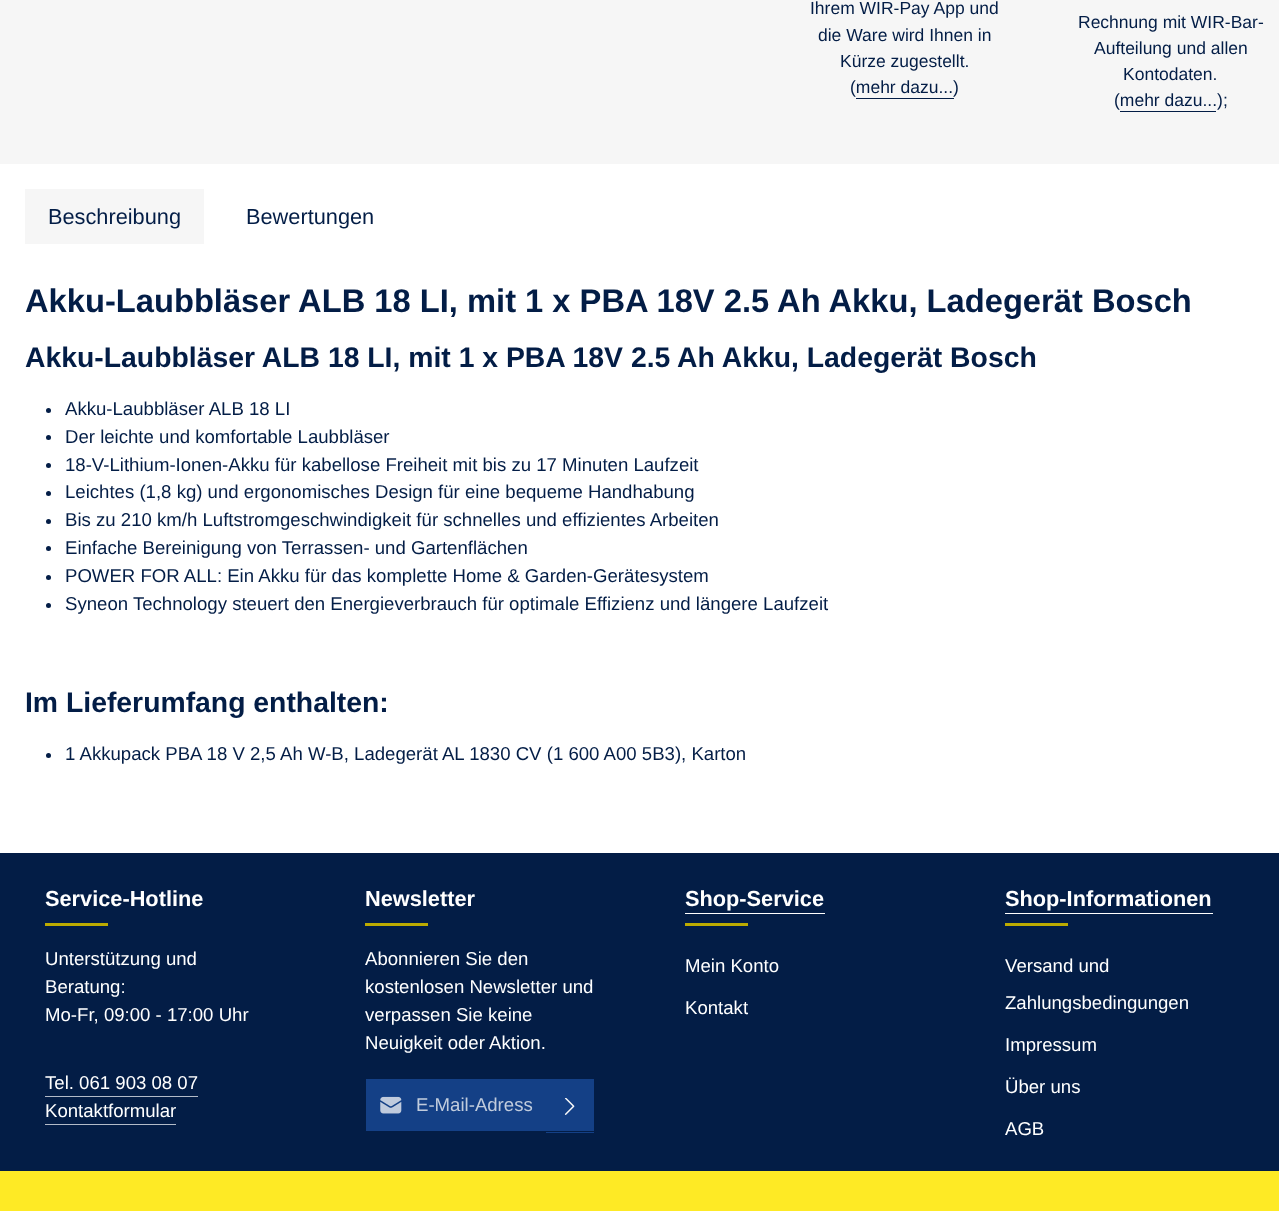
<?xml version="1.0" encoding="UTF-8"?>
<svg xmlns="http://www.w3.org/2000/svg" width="1279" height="1211">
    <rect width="100%" height="100%" fill="#F6F6F6"/>
    <text x="810" y="14" font-family="Liberation Sans" font-size="17.5" fill="#031D46">Ihrem WIR-Pay App und</text>
    <text x="818" y="41" font-family="Liberation Sans" font-size="17.5" fill="#031D46">die Ware wird Ihnen in</text>
    <text x="840" y="67" font-family="Liberation Sans" font-size="17.5" fill="#031D46">Kürze zugestellt.</text>
    <text x="850" y="93" font-family="Liberation Sans" font-size="17.5" fill="#031D46">(mehr dazu...)</text>
    <rect x="856" y="98" width="98" height="1" fill="#031D46"/>
    <text x="1078" y="28" font-family="Liberation Sans" font-size="17.5" fill="#031D46">Rechnung mit WIR-Bar-</text>
    <text x="1094" y="54" font-family="Liberation Sans" font-size="17.5" fill="#031D46">Aufteilung und allen</text>
    <text x="1123" y="80" font-family="Liberation Sans" font-size="17.5" fill="#031D46">Kontodaten.</text>
    <text x="1114" y="106" font-family="Liberation Sans" font-size="17.5" fill="#031D46">(mehr dazu...);</text>
    <rect x="1120" y="111" width="96" height="1" fill="#031D46"/>
    <rect x="0" y="164" width="1279" height="689" fill="#FFFFFF"/>
    <rect x="25" y="189" width="179" height="55" fill="#F6F6F6"/>
    <text x="48" y="224" font-family="Liberation Sans" font-size="21.75" fill="#031D46">Beschreibung</text>
    <text x="246" y="224" font-family="Liberation Sans" font-size="21.75" fill="#031D46">Bewertungen</text>
    <text x="25" y="312" font-family="Liberation Sans" font-size="32.7" font-weight="700" fill="#031D46">Akku-Laubbläser ALB 18 LI, mit 1 x PBA 18V 2.5 Ah Akku, Ladegerät Bosch</text>
    <text x="25" y="367" font-family="Liberation Sans" font-size="28.35" font-weight="700" fill="#031D46">Akku-Laubbläser ALB 18 LI, mit 1 x PBA 18V 2.5 Ah Akku, Ladegerät Bosch</text>
    <circle cx="48.5" cy="410.5" r="2.5" fill="#031D46"/>
    <text x="65" y="415" font-family="Liberation Sans" font-size="18.6" fill="#031D46">Akku-Laubbläser ALB 18 LI</text>
    <circle cx="48.5" cy="437.5" r="2.5" fill="#031D46"/>
    <text x="65" y="443" font-family="Liberation Sans" font-size="18.6" fill="#031D46">Der leichte und komfortable Laubbläser</text>
    <circle cx="48.5" cy="465.5" r="2.5" fill="#031D46"/>
    <text x="65" y="471" font-family="Liberation Sans" font-size="18.6" fill="#031D46">18-V-Lithium-Ionen-Akku für kabellose Freiheit mit bis zu 17 Minuten Laufzeit</text>
    <circle cx="48.5" cy="493.5" r="2.5" fill="#031D46"/>
    <text x="65" y="498" font-family="Liberation Sans" font-size="18.6" fill="#031D46">Leichtes (1,8 kg) und ergonomisches Design für eine bequeme Handhabung</text>
    <circle cx="48.5" cy="521.5" r="2.5" fill="#031D46"/>
    <text x="65" y="526" font-family="Liberation Sans" font-size="18.6" fill="#031D46">Bis zu 210 km/h Luftstromgeschwindigkeit für schnelles und effizientes Arbeiten</text>
    <circle cx="48.5" cy="548.5" r="2.5" fill="#031D46"/>
    <text x="65" y="554" font-family="Liberation Sans" font-size="18.6" fill="#031D46">Einfache Bereinigung von Terrassen- und Gartenflächen</text>
    <circle cx="48.5" cy="577.5" r="2.5" fill="#031D46"/>
    <text x="65" y="582" font-family="Liberation Sans" font-size="18.6" fill="#031D46">POWER FOR ALL: Ein Akku für das komplette Home &amp; Garden-Gerätesystem</text>
    <circle cx="48.5" cy="605.5" r="2.5" fill="#031D46"/>
    <text x="65" y="610" font-family="Liberation Sans" font-size="18.6" fill="#031D46">Syneon Technology steuert den Energieverbrauch für optimale Effizienz und längere Laufzeit</text>
    <text x="25" y="712" font-family="Liberation Sans" font-size="28.35" font-weight="700" fill="#031D46">Im Lieferumfang enthalten:</text>
    <circle cx="48.5" cy="755.5" r="2.5" fill="#031D46"/>
    <text x="65" y="760" font-family="Liberation Sans" font-size="18.6" fill="#031D46">1 Akkupack PBA 18 V 2,5 Ah W-B, Ladegerät AL 1830 CV (1 600 A00 5B3), Karton</text>
    <rect x="0" y="853" width="1279" height="318" fill="#031D46"/>
    <text x="45" y="906" font-family="Liberation Sans" font-size="21.75" font-weight="700" fill="#FFFFFF">Service-Hotline</text>
    <rect x="45" y="923" width="63" height="3" fill="#BCAB01"/>
    <text font-family="Liberation Sans" font-size="18.6" fill="#FFFFFF">
        <tspan x="45" y="965">Unterstützung und</tspan>
        <tspan x="45" y="993">Beratung:</tspan>
        <tspan x="45" y="1021">Mo-Fr, 09:00 - 17:00 Uhr</tspan>
    </text>
    <text x="45" y="1089" font-family="Liberation Sans" font-size="18.6" fill="#FFFFFF">Tel. 061 903 08 07</text>
    <rect x="45" y="1096" width="153" height="1" fill="#B3BBC8"/>
    <text x="45" y="1117" font-family="Liberation Sans" font-size="18.6" fill="#FFFFFF">Kontaktformular</text>
    <rect x="45" y="1124" width="131" height="1" fill="#B3BBC8"/>
    <text x="365" y="906" font-family="Liberation Sans" font-size="21.75" font-weight="700" fill="#FFFFFF">Newsletter</text>
    <rect x="365" y="923" width="63" height="3" fill="#BCAB01"/>
    <text font-family="Liberation Sans" font-size="18.6" fill="#FFFFFF">
        <tspan x="365" y="965">Abonnieren Sie den</tspan>
        <tspan x="365" y="993">kostenlosen Newsletter und</tspan>
        <tspan x="365" y="1021">verpassen Sie keine</tspan>
        <tspan x="365" y="1049">Neuigkeit oder Aktion.</tspan>
    </text>
    <rect x="366" y="1079" width="180" height="52" fill="#144086"/>
    <image x="380" y="1096" width="22" height="18" href="img_01.png"/>
    <text x="416" y="1111" font-family="Liberation Sans" font-size="18.6" fill="#C1CCDD">E-Mail-Adress</text>
    <rect x="546" y="1079" width="48" height="54" fill="#144086"/>
    <rect x="546" y="1131" width="49" height="1" fill="#031D46"/>
    <image x="564" y="1098" width="11" height="17" href="img_02.png"/>
    <text x="685" y="906" font-family="Liberation Sans" font-size="21.75" font-weight="700" fill="#FFFFFF">Shop-Service</text>
    <rect x="685" y="913" width="140" height="1" fill="#FFFFFF"/>
    <rect x="685" y="923" width="63" height="3" fill="#BCAB01"/>
    <text x="685" y="972" font-family="Liberation Sans" font-size="18.6" fill="#FFFFFF">Mein Konto</text>
    <text x="685" y="1014" font-family="Liberation Sans" font-size="18.6" fill="#FFFFFF">Kontakt</text>
    <text x="1005" y="906" font-family="Liberation Sans" font-size="21.75" font-weight="700" fill="#FFFFFF">Shop-Informationen</text>
    <rect x="1005" y="913" width="208" height="1" fill="#FFFFFF"/>
    <rect x="1005" y="923" width="63" height="3" fill="#BCAB01"/>
    <text font-family="Liberation Sans" font-size="18.6" fill="#FFFFFF">
        <tspan x="1005" y="972">Versand und</tspan>
        <tspan x="1005" y="1009">Zahlungsbedingungen</tspan>
    </text>
    <text x="1005" y="1051" font-family="Liberation Sans" font-size="18.6" fill="#FFFFFF">Impressum</text>
    <text x="1005" y="1093" font-family="Liberation Sans" font-size="18.6" fill="#FFFFFF">Über uns</text>
    <text x="1005" y="1135" font-family="Liberation Sans" font-size="18.6" fill="#FFFFFF">AGB</text>
    <rect x="0" y="1171" width="1279" height="40" fill="#FEEA25"/>
</svg>
